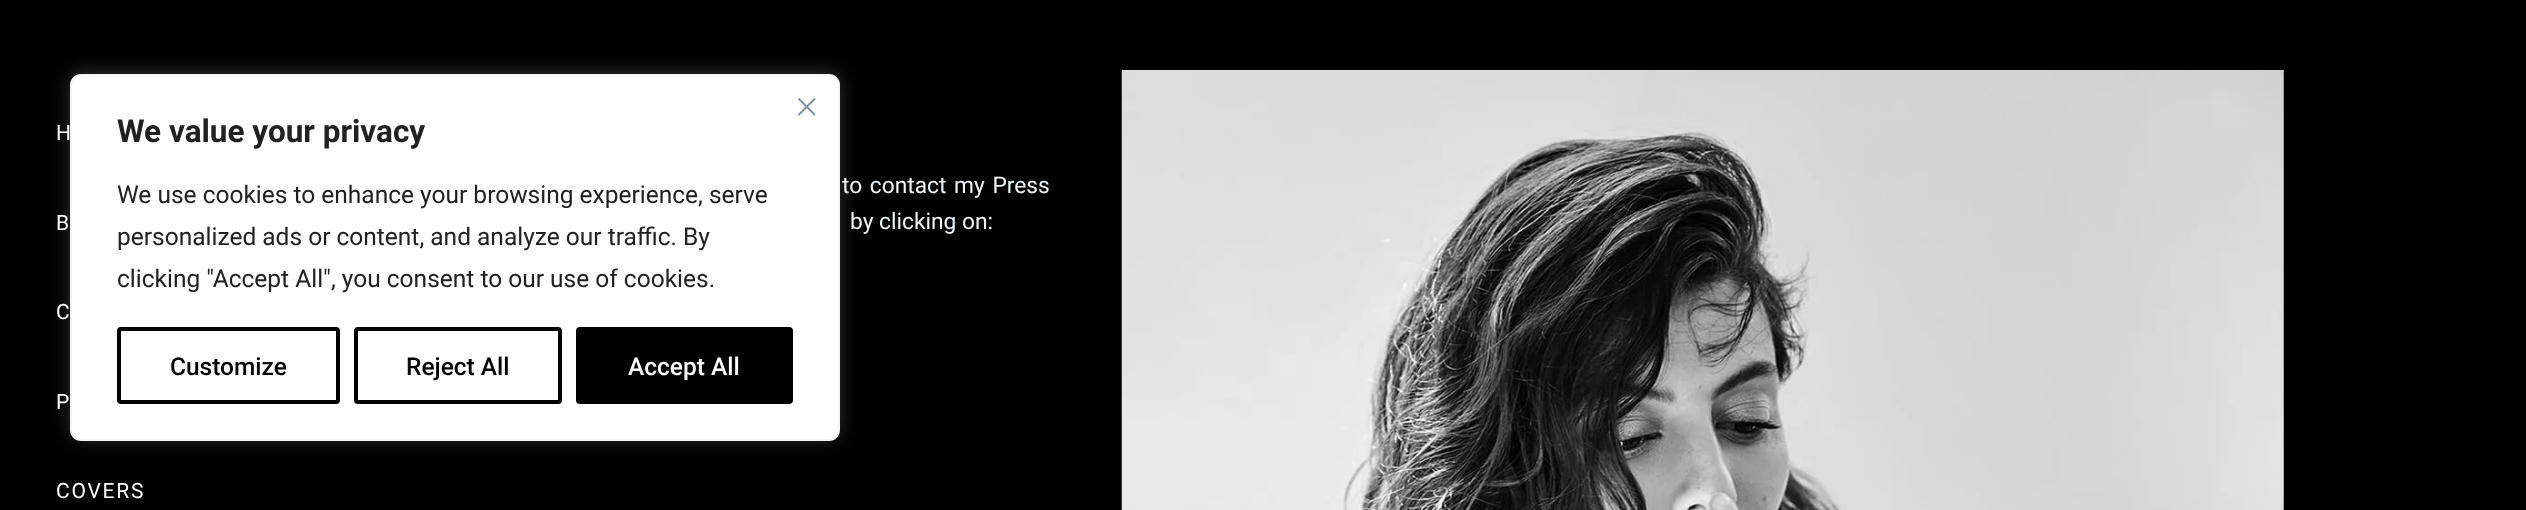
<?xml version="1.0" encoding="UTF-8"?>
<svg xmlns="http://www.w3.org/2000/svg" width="2526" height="510">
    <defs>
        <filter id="blur1" x="-50%" y="-200%" width="200%" height="500%"><feGaussianBlur stdDeviation="9"/></filter>
    </defs>
    <rect width="100%" height="100%" fill="#000000"/>
    <rect x="70" y="72" width="770" height="367" rx="11" fill="#ACABAB" fill-opacity="0.3" filter="url(#blur1)"/>
    <rect x="71" y="75" width="768" height="365" rx="10" fill="#FFFFFF" stroke="#F4F4F4" stroke-width="2"/>
    <image x="798" y="98" width="18" height="18" href="img_01.png"/>
    <text x="117" y="142" font-family="Roboto" font-size="31.5" font-weight="700" fill="#212121">We value your privacy</text>
    <text font-family="Roboto" font-size="24.5" fill="#212121">
        <tspan x="117" y="203">We use cookies to enhance your browsing experience, serve</tspan>
        <tspan x="117" y="245">personalized ads or content, and analyze our traffic. By</tspan>
        <tspan x="117" y="287">clicking "Accept All", you consent to our use of cookies.</tspan>
    </text>
    <rect x="119" y="329" width="219" height="73" rx="2" fill="none" stroke="#000000" stroke-width="4"/>
    <text x="170" y="375" font-family="Roboto" font-size="24.5" font-weight="500" fill="#000000">Customize</text>
    <rect x="356" y="329" width="204" height="73" rx="2" fill="none" stroke="#000000" stroke-width="4"/>
    <text x="406" y="375" font-family="Roboto" font-size="24.5" font-weight="500" fill="#000000">Reject All</text>
    <rect x="578" y="329" width="213" height="73" rx="2" fill="#000000" stroke="#000000" stroke-width="4"/>
    <text x="628" y="375" font-family="Roboto" font-size="24.5" font-weight="500" fill="#FFFFFF">Accept All</text>
    <text x="56" y="140" font-family="Roboto" font-size="21" letter-spacing="1.75" fill="#FFFFFF">H</text>
    <text x="56" y="230" font-family="Roboto" font-size="21" letter-spacing="1.75" fill="#FFFFFF">B</text>
    <text x="56" y="319" font-family="Roboto" font-size="21" letter-spacing="1.75" fill="#FFFFFF">C</text>
    <text x="56" y="409" font-family="Roboto" font-size="21" letter-spacing="1.75" fill="#FFFFFF">P</text>
    <text x="56" y="498" font-family="Roboto" font-size="21" letter-spacing="1.75" fill="#FFFFFF">COVERS</text>
    <text x="842" y="193" word-spacing="2" font-family="Roboto" font-size="22.75" fill="#EFF4F7">to contact my Press</text>
    <text x="850" y="229" font-family="Roboto" font-size="22.75" fill="#EFF4F7">by clicking on:</text>
    <image x="1121" y="70" width="1163" height="440" href="img_02.png"/>
</svg>
